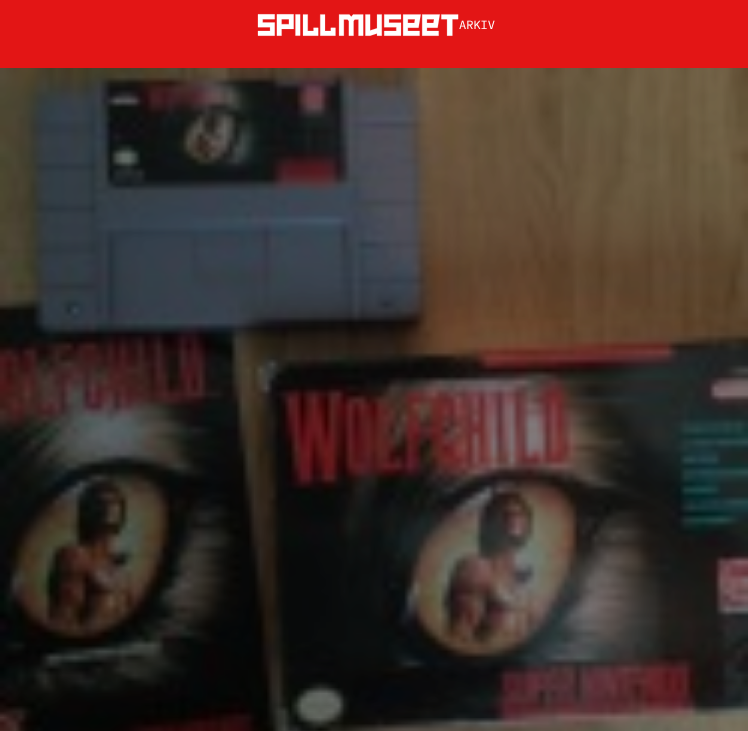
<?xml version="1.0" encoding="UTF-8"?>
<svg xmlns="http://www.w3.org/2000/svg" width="748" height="731">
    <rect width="100%" height="100%" fill="#E31515"/>
    <image x="257" y="13" width="202" height="24" href="img_01.png"/>
    <text x="459" y="29" font-family="IBM Plex Mono" font-size="12" fill="#FFFFFF">ARKIV</text>
    <image x="0" y="68" width="748" height="663" href="img_02.png"/>
</svg>
